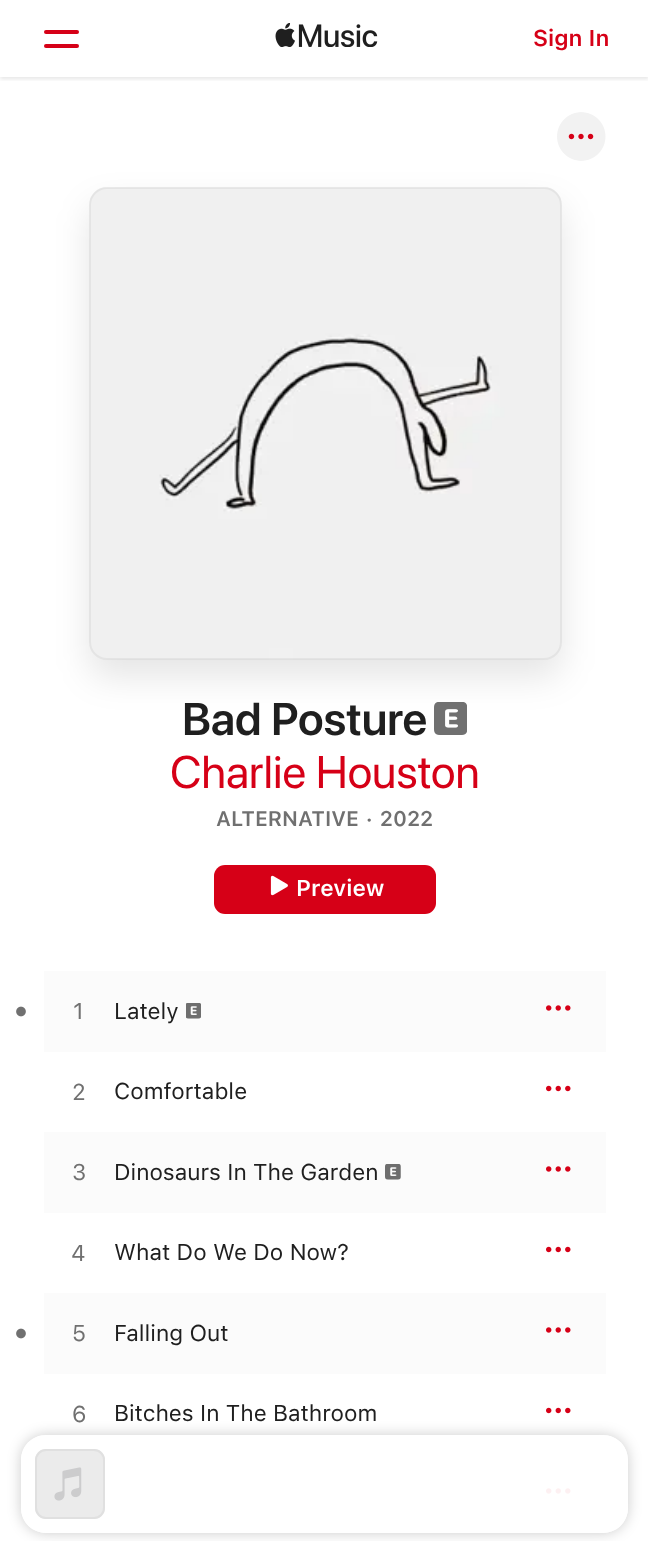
<?xml version="1.0" encoding="UTF-8"?>
<svg xmlns="http://www.w3.org/2000/svg" width="648" height="1541">
    <defs>
        <clipPath id="clip1"><rect x="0" y="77" width="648" height="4"/></clipPath>
        <filter id="blur1" x="-50%" y="-200%" width="200%" height="500%"><feGaussianBlur stdDeviation="2"/></filter>
        <filter id="blur2" x="-50%" y="-200%" width="200%" height="500%"><feGaussianBlur stdDeviation="17.5"/></filter>
        <linearGradient id="g1" gradientUnits="userSpaceOnUse" x1="325" y1="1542" x2="325" y2="1435"><stop offset="0" stop-color="#FFFFFF" stop-opacity="0.8"/><stop offset="1" stop-color="#FFFFFF" stop-opacity="0"/></linearGradient>
        <clipPath id="clip2"><path d="M 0 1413 H 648 V 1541 H 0 Z M 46 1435 H 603 C 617 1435 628 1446 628 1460 V 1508 C 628 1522 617 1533 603 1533 H 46 C 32 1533 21 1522 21 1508 V 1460 C 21 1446 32 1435 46 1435 Z" clip-rule="evenodd"/></clipPath>
        <filter id="blur3" x="-50%" y="-200%" width="200%" height="500%"><feGaussianBlur stdDeviation="7"/></filter>
    </defs>
    <rect width="100%" height="100%" fill="#FFFFFF"/>
    <g clip-path="url(#clip1)">
        <rect x="0" y="2" width="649" height="77" fill="#000000" fill-opacity="0.1" filter="url(#blur1)"/>
    </g>
    <rect x="44" y="30" width="35" height="4" rx="2" fill="#D60017"/>
    <rect x="44" y="44" width="35" height="4" rx="2" fill="#D60017"/>
    <image x="275" y="23" width="103" height="24" href="img_01.png"/>
    <text x="533" y="46" font-family="SF" font-size="22.75" font-weight="600" fill="#D60017">Sign In</text>
    <image x="557" y="112" width="49" height="49" href="img_02.png"/>
    <image x="434" y="702" width="33" height="33" href="img_04.png"/>
    <rect x="89" y="205" width="473" height="472" rx="18" fill="#000000" fill-opacity="0.1" filter="url(#blur2)"/>
    <rect x="118" y="244" width="413" height="415" fill="none" stroke="#808080" stroke-opacity="0.04" stroke-width="2"/>
    <image x="89" y="187" width="473" height="473" href="img_03.png"/>
    <rect x="90" y="188" width="471" height="471" rx="17" fill="none" stroke="#808080" stroke-opacity="0.1" stroke-width="2"/>
    <text x="182" y="735" font-family="'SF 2'" font-size="45.5" font-weight="600" fill="#1F1F1F">Bad Posture</text>
    <text x="170" y="788" font-family="SF" font-size="45.5" fill="#D60017">Charlie Houston</text>
    <text x="216" y="826" font-family="SF" font-size="21" font-weight="600" fill="#707070">ALTERNATIVE · 2022</text>
    <rect x="214" y="865" width="222" height="49" rx="11" fill="#D60017"/>
    <image x="270" y="875" width="18" height="21" href="img_05.png"/>
    <text x="296" y="896" font-family="SF" font-size="22.75" font-weight="600" fill="#FFFFFF">Preview</text>
    <rect x="44" y="971" width="562" height="81" fill="#FBFBFB"/>
    <image x="16" y="1006" width="10" height="11" href="img_06.png"/>
    <text x="73" y="1019" font-family="'SF 2'" font-size="22.75" fill="#707070">1</text>
    <text x="114" y="1019" font-family="'SF 2'" font-size="22.75" fill="#1F1F1F">Lately</text>
    <image x="186" y="1003" width="15" height="16" href="img_07.png"/>
    <image x="546" y="1005" width="25" height="6" href="img_08.png"/>
    <text x="72" y="1100" font-family="'SF 2'" font-size="22.75" fill="#707070">2</text>
    <text x="114" y="1099" font-family="'SF 2'" font-size="22.75" fill="#1F1F1F">Comfortable</text>
    <image x="546" y="1085" width="25" height="7" href="img_09.png"/>
    <rect x="44" y="1132" width="562" height="81" fill="#FBFBFB"/>
    <text x="72" y="1180" font-family="'SF 2'" font-size="22.75" fill="#707070">3</text>
    <text x="114" y="1180" font-family="'SF 2'" font-size="22.75" fill="#1F1F1F">Dinosaurs In The Garden</text>
    <image x="385" y="1164" width="16" height="16" href="img_10.png"/>
    <image x="546" y="1166" width="25" height="6" href="img_08.png"/>
    <text x="71" y="1261" font-family="'SF 2'" font-size="22.75" fill="#707070">4</text>
    <text x="114" y="1260" font-family="'SF 2'" font-size="22.75" fill="#1F1F1F">What Do We Do Now?</text>
    <image x="546" y="1246" width="25" height="7" href="img_09.png"/>
    <rect x="44" y="1293" width="562" height="81" fill="#FBFBFB"/>
    <image x="16" y="1328" width="10" height="11" href="img_06.png"/>
    <text x="72" y="1341" font-family="'SF 2'" font-size="22.75" fill="#707070">5</text>
    <text x="114" y="1341" font-family="'SF 2'" font-size="22.75" fill="#1F1F1F">Falling Out</text>
    <image x="546" y="1327" width="25" height="6" href="img_08.png"/>
    <text x="72" y="1422" font-family="'SF 2'" font-size="22.75" fill="#707070">6</text>
    <text x="114" y="1421" font-family="'SF 2'" font-size="22.75" fill="#1F1F1F">Bitches In The Bathroom</text>
    <image x="546" y="1407" width="25" height="7" href="img_09.png"/>
    <rect x="44" y="1454" width="562" height="81" fill="#FBFBFB"/>
    <image x="546" y="1488" width="25" height="6" href="img_08.png"/>
    <rect x="44" y="1488" width="562" height="47" fill="url(#g1)"/>
    <g clip-path="url(#clip2)">
        <rect x="21" y="1435" width="607" height="98" rx="25" fill="#000000" fill-opacity="0.2" filter="url(#blur3)"/>
    </g>
    <rect x="21" y="1435" width="607" height="98" rx="25" fill="#FFFFFF" fill-opacity="0.9"/>
    <rect x="35" y="1449" width="70" height="70" rx="11" fill="#EBEBEB"/>
    <image x="54" y="1467" width="28" height="34" href="img_11.png"/>
    <rect x="36" y="1450" width="68" height="68" rx="10" fill="none" stroke="#E0E0E0" stroke-width="2"/>
</svg>
